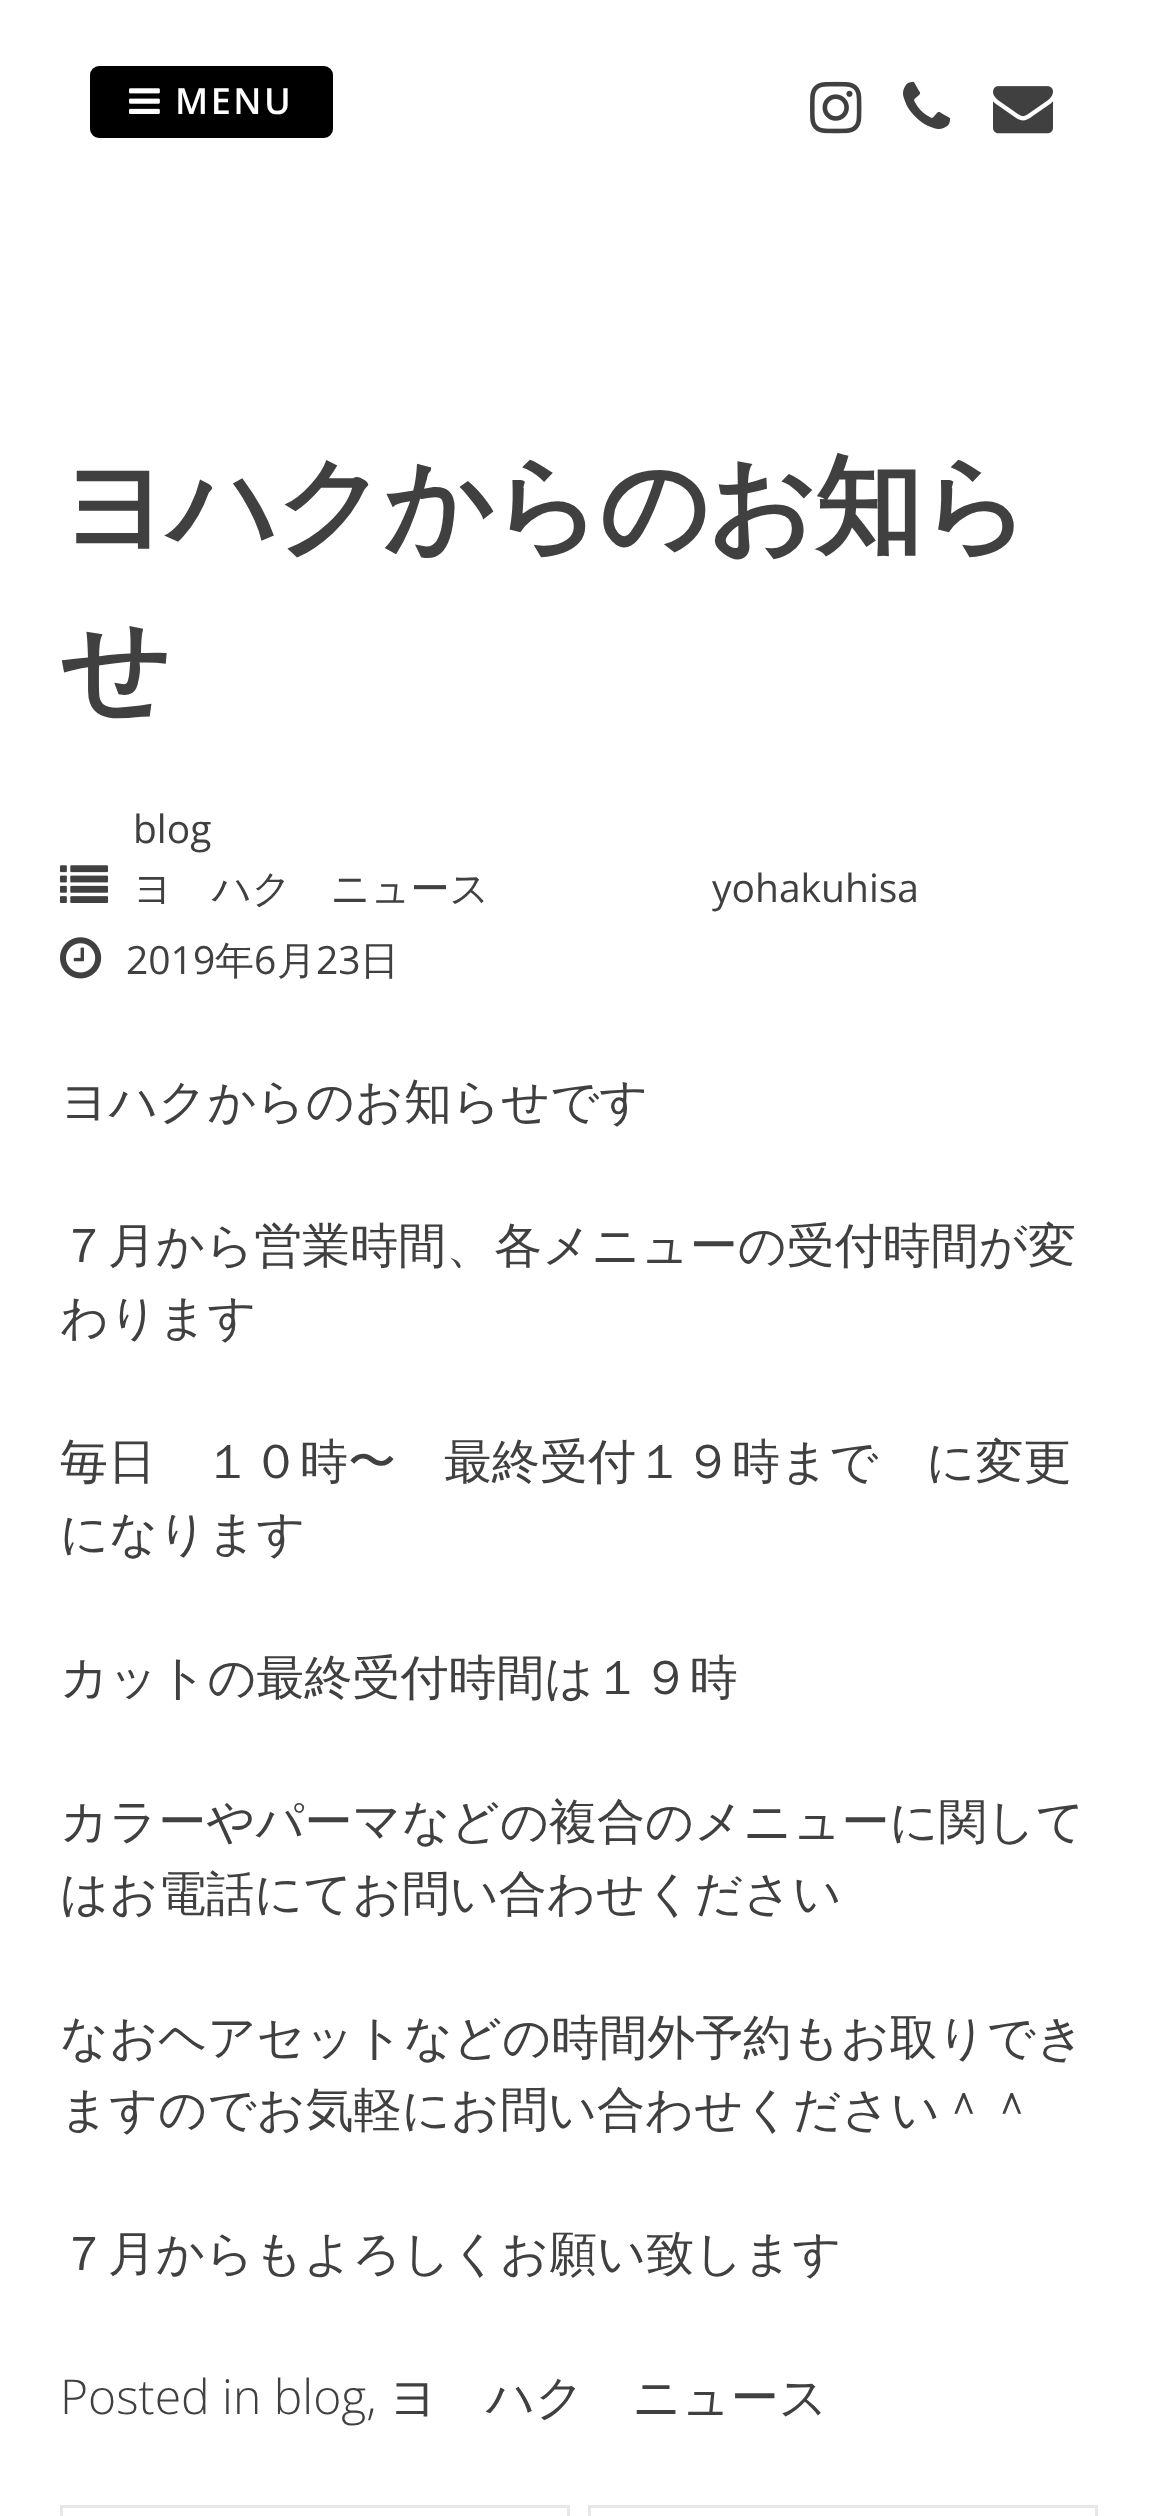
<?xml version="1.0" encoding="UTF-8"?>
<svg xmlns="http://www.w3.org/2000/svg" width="1157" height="2516">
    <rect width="100%" height="100%" fill="#FFFFFF"/>
    <rect x="91.5" y="67.5" width="240" height="69" rx="7.5" fill="#000000" stroke="#000000" stroke-width="3"/>
    <image x="129" y="88" width="31" height="26" href="img_01.png"/>
    <text x="175" y="114" font-family="Open Sans" font-size="36" font-weight="600" letter-spacing="2.5" fill="#FFFFFF">MENU</text>
    <image x="810" y="81" width="52" height="53" href="img_02.png"/>
    <image x="903" y="81" width="48" height="48" href="img_03.png"/>
    <image x="993" y="86" width="60" height="48" href="img_04.png"/>
    <text font-family="WenQuanYi Zen Hei" font-size="108" font-weight="700" letter-spacing="-2.75" fill="#404040">
        <tspan x="60" y="543">ヨハクからのお知ら</tspan>
        <tspan x="60" y="705">せ</tspan>
    </text>
    <image x="60" y="865" width="48" height="38" href="img_05.png"/>
    <text x="133" y="843" font-family="Open Sans" font-size="39" fill="#404040">blog</text>
    <text x="133" y="902" font-family="WenQuanYi Zen Hei" font-size="39" font-weight="500" fill="#404040">ヨ　ハク　ニュース</text>
    <text x="712" y="902" font-family="Open Sans" font-size="39" fill="#404040">yohakuhisa</text>
    <image x="60" y="937" width="42" height="42" href="img_06.png"/>
    <text x="126" y="974" font-family="Open Sans" font-size="39" fill="#404040">2019</text>
    <text x="215" y="974" font-family="WenQuanYi Zen Hei" font-size="39" font-weight="500" fill="#404040">年</text>
    <text x="254" y="974" font-family="Open Sans" font-size="39" fill="#404040">6</text>
    <text x="277" y="974" font-family="WenQuanYi Zen Hei" font-size="39" font-weight="500" fill="#404040">月</text>
    <text x="316" y="974" font-family="Open Sans" font-size="39" fill="#404040">23</text>
    <text x="360" y="974" font-family="WenQuanYi Zen Hei" font-size="39" font-weight="500" fill="#404040">日</text>
    <text x="60" y="1118" font-family="WenQuanYi Zen Hei" font-size="48" font-weight="500" fill="#404040">ヨハクからのお知らせです</text>
    <text font-family="WenQuanYi Zen Hei" font-size="48" font-weight="500" fill="#404040">
        <tspan x="60" y="1262">７月から営業時間、各メニューの受付時間が変</tspan>
        <tspan x="60" y="1334">わります</tspan>
    </text>
    <text font-family="WenQuanYi Zen Hei" font-size="48" font-weight="500" fill="#404040">
        <tspan x="60" y="1478">毎日　１０時〜　最終受付１９時まで　に変更</tspan>
        <tspan x="60" y="1550">になります</tspan>
    </text>
    <text x="60" y="1694" font-family="WenQuanYi Zen Hei" font-size="48" font-weight="500" fill="#404040">カットの最終受付時間は１９時</text>
    <text font-family="WenQuanYi Zen Hei" font-size="48" font-weight="500" fill="#404040">
        <tspan x="60" y="1838">カラーやパーマなどの複合のメニューに関して</tspan>
        <tspan x="60" y="1910">はお電話にてお問い合わせください</tspan>
    </text>
    <text font-family="WenQuanYi Zen Hei" font-size="48" font-weight="500" fill="#404040">
        <tspan x="60" y="2054">なおヘアセットなどの時間外予約もお取りでき</tspan>
        <tspan x="60" y="2126">ますのでお気軽にお問い合わせください＾＾</tspan>
    </text>
    <text x="60" y="2270" font-family="WenQuanYi Zen Hei" font-size="48" font-weight="500" fill="#404040">７月からもよろしくお願い致します</text>
    <text x="60" y="2414" font-family="Open Sans" font-size="48" font-weight="300" fill="#404040">Posted in blog,</text>
    <text x="389" y="2414" font-family="WenQuanYi Zen Hei" font-size="48" font-weight="500" fill="#404040">ヨ　ハク　ニュース</text>
    <rect x="61.5" y="2506.5" width="507" height="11" fill="none" stroke="#E6E7E8" stroke-width="3"/>
    <rect x="589.5" y="2506.5" width="507" height="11" fill="none" stroke="#E6E7E8" stroke-width="3"/>
</svg>
